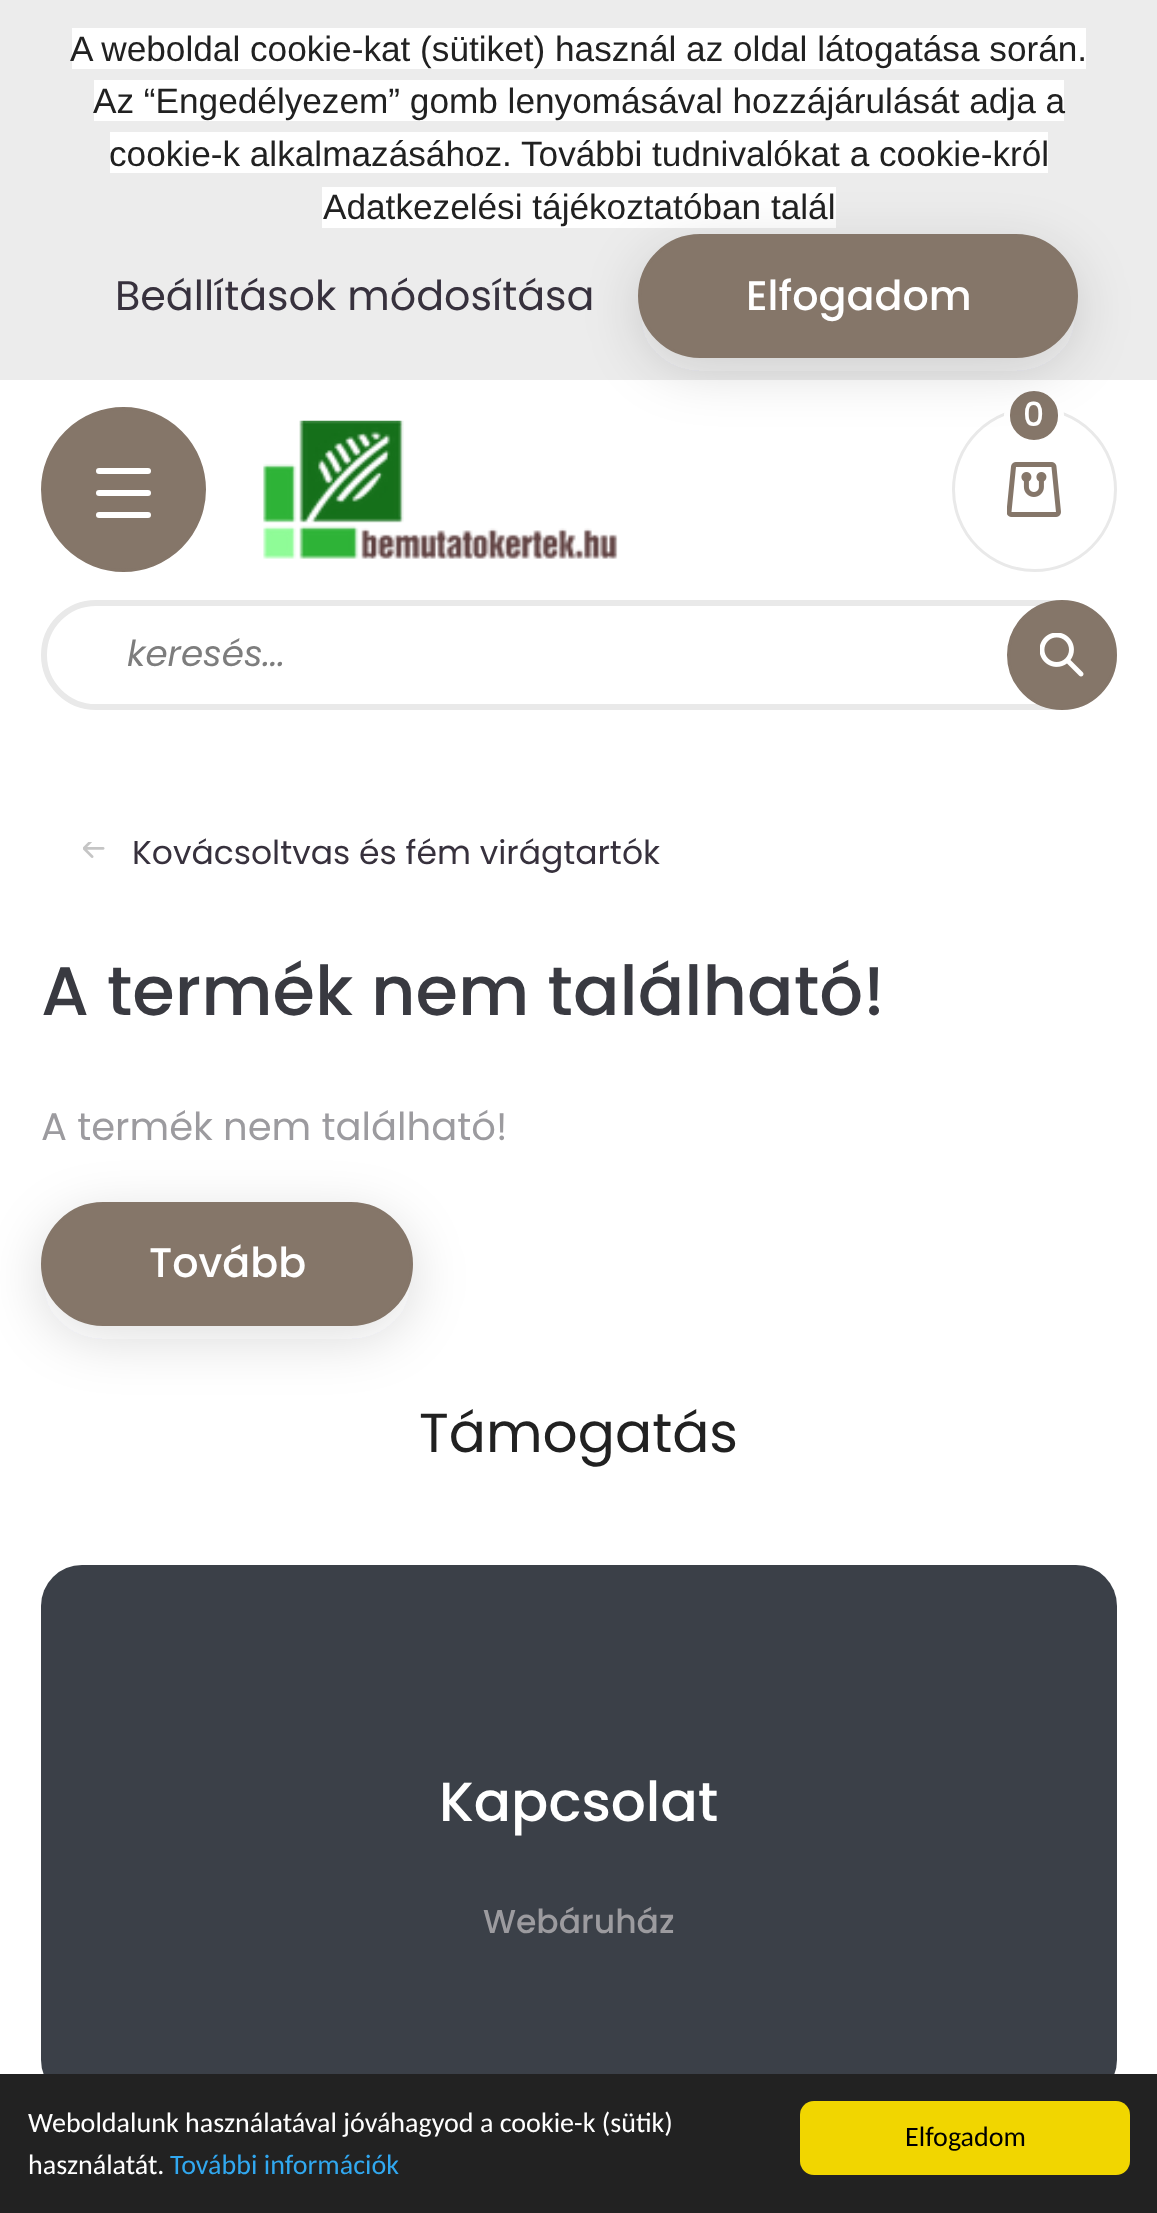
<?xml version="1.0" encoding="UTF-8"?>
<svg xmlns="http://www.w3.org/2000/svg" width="1157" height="2213">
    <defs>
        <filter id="blur1" x="-50%" y="-200%" width="200%" height="500%"><feGaussianBlur stdDeviation="27.5"/></filter>
    </defs>
    <rect width="100%" height="100%" fill="#FFFFFF"/>
    <rect x="0" y="0" width="1157" height="380" fill="#ECECEC"/>
    <rect x="72" y="28" width="1014" height="41" fill="#FFFFFF"/>
    <text x="70" y="61" font-family="Liberation Sans" font-size="35.2" fill="#212121">A weboldal cookie-kat (sütiket) használ az oldal látogatása során.</text>
    <rect x="94" y="80" width="970" height="41" fill="#FFFFFF"/>
    <text x="93" y="113" font-family="Liberation Sans" font-size="35.2" fill="#212121">Az “Engedélyezem” gomb lenyomásával hozzájárulását adja a</text>
    <rect x="110" y="132" width="938" height="41" fill="#FFFFFF"/>
    <text x="109" y="166" font-family="Liberation Sans" font-size="35.2" fill="#212121">cookie-k alkalmazásához. További tudnivalókat a cookie-król</text>
    <rect x="322" y="187" width="514" height="41" fill="#FFFFFF"/>
    <text x="323" y="219" font-family="Liberation Sans" font-size="35.2" fill="#212121">Adatkezelési tájékoztatóban talál</text>
    <text x="115" y="310" font-family="Poppins" font-size="41.25" fill="#37313D">Beállítások módosítása</text>
    <image x="263" y="420" width="355" height="139" href="img_01.png"/>
    <circle cx="1034.5" cy="489.5" r="81" fill="none" stroke="#E9E9E9" stroke-width="3"/>
    <rect x="1007" y="388" width="54" height="55" rx="27" fill="#857669" stroke="#FFFFFF" stroke-width="6"/>
    <rect x="638" y="248" width="440" height="123" rx="61.5" fill="#20202C" fill-opacity="0.15" filter="url(#blur1)"/>
    <rect x="639.5" y="235.5" width="437" height="121" rx="60.5" fill="#857669" stroke="#857669" stroke-width="3"/>
    <text x="746" y="310" font-family="Poppins" font-size="41.25" font-weight="500" fill="#FFFFFF">Elfogadom</text>
    <circle cx="123.5" cy="489.5" r="81" fill="#857669" stroke="#857669" stroke-width="3"/>
    <rect x="96" y="468" width="55" height="6" rx="3" fill="#FFFFFF"/>
    <rect x="96" y="490" width="55" height="6" rx="3" fill="#FFFFFF"/>
    <rect x="96" y="512" width="55" height="6" rx="3" fill="#FFFFFF"/>
    <text x="1023" y="426" font-family="Poppins" font-size="33" font-weight="500" fill="#FFFFFF">0</text>
    <image x="1007" y="462" width="54" height="55" href="img_02.png"/>
    <rect x="44" y="603" width="1070" height="104" rx="52" fill="none" stroke="#E9E9E9" stroke-width="6"/>
    <text x="127" y="666" font-family="Poppins" font-size="35.75" font-style="italic" fill="#7D7D7D">keresés...</text>
    <circle cx="1062" cy="655" r="53.5" fill="#857669" stroke="#857669" stroke-width="3"/>
    <image x="1040" y="633" width="44" height="44" href="img_03.png"/>
    <image x="83" y="842" width="22" height="16" href="img_04.png"/>
    <text x="132" y="864" font-family="Poppins" font-size="33" fill="#37313D">Kovácsoltvas és fém virágtartók</text>
    <text x="41" y="1015" font-family="Poppins" font-size="68.75" font-weight="500" fill="#393A41">A termék nem található!</text>
    <text x="41" y="1140" font-family="Poppins" font-size="38.5" fill="#9C9B9F">A termék nem található!</text>
    <rect x="41" y="1216" width="372" height="123" rx="61.5" fill="#20202C" fill-opacity="0.15" filter="url(#blur1)"/>
    <rect x="42.5" y="1203.5" width="369" height="121" rx="60.5" fill="#857669" stroke="#857669" stroke-width="3"/>
    <text x="149" y="1277" font-family="Poppins" font-size="41.25" font-weight="500" fill="#FFFFFF">Tovább</text>
    <text x="419" y="1452" font-family="Poppins" font-size="55" fill="#212121">Támogatás</text>
    <rect x="41" y="1565" width="1076" height="536" rx="41" fill="#3B4048"/>
    <text x="439" y="1821" font-family="Poppins" font-size="55" font-weight="500" fill="#FFFFFF">Kapcsolat</text>
    <text x="483" y="1933" font-family="Poppins" font-size="33" font-weight="500" fill="#9C9B9F">Webáruház</text>
    <rect x="0" y="2074" width="1157" height="139" fill="#222222"/>
    <text font-family="Carlito" font-size="28.05" fill="#FFFFFF">
        <tspan x="28" y="2132">Weboldalunk használatával jóváhagyod a cookie-k (sütik)</tspan>
        <tspan x="28" y="2174">használatát.</tspan>
    </text>
    <text x="170" y="2174" font-family="Carlito" font-size="28.05" fill="#31A8F0">További információk</text>
    <rect x="800" y="2101" width="330" height="74" rx="14" fill="#F1D600"/>
    <text x="905" y="2146" font-family="Carlito" font-size="28.05" fill="#000000">Elfogadom</text>
</svg>
